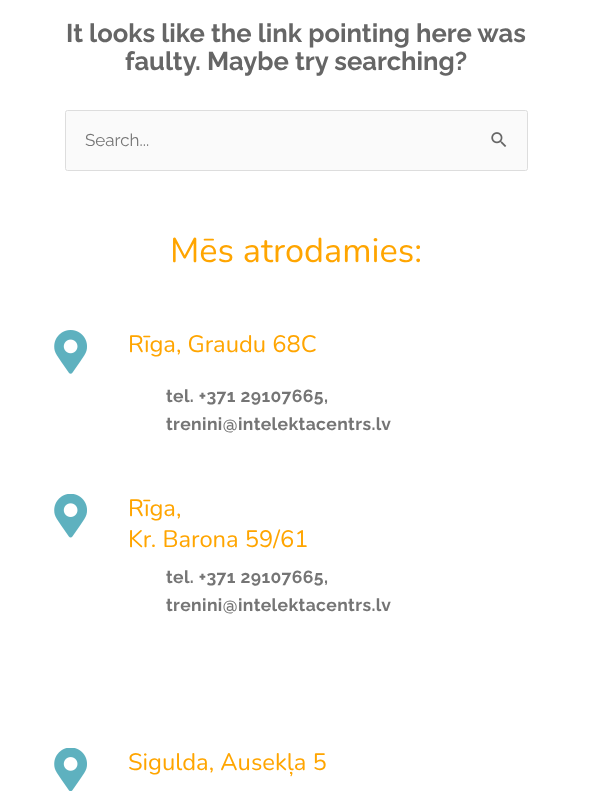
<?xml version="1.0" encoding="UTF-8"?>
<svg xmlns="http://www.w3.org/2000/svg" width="592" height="791">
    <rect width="100%" height="100%" fill="#FFFFFF"/>
    <text x="66" y="42" font-family="Raleway" font-size="25.6" font-weight="700" fill="#666666">It looks like the link pointing here was</text>
    <text x="125" y="70" font-family="Raleway" font-size="25.6" font-weight="700" fill="#666666">faulty. Maybe try searching?</text>
    <rect x="65.5" y="110.5" width="462" height="60" rx="2" fill="#FAFAFA" stroke="#DDDDDD"/>
    <text x="85" y="146" font-family="Raleway" font-size="17" fill="#757575">Search...</text>
    <image x="491" y="132" width="16" height="15" href="img_01.png"/>
    <text x="170" y="262" font-family="Nunito" font-size="34.25" font-weight="200" fill="#FFA500">Mēs atrodamies:</text>
    <image x="54" y="330" width="33" height="44" href="img_02.png"/>
    <text x="128" y="352" font-family="Nunito" font-size="23.75" font-weight="200" fill="#FFA500">Rīga, Graudu 68C</text>
    <text font-family="Raleway" font-size="17.5" font-weight="700" letter-spacing="0.4" fill="#757575">
        <tspan x="166" y="402">tel. +371 29107665,</tspan>
        <tspan x="166" y="430">trenini@intelektacentrs.lv</tspan>
    </text>
    <image x="54" y="494" width="33" height="44" href="img_03.png"/>
    <text font-family="Nunito" font-size="23.75" font-weight="200" fill="#FFA500">
        <tspan x="128" y="516">Rīga,</tspan>
        <tspan x="128" y="547">Kr. Barona 59/61</tspan>
    </text>
    <text font-family="Raleway" font-size="17.5" font-weight="700" letter-spacing="0.4" fill="#757575">
        <tspan x="166" y="583">tel. +371 29107665,</tspan>
        <tspan x="166" y="611">trenini@intelektacentrs.lv</tspan>
    </text>
    <image x="54" y="748" width="33" height="43" href="img_04.png"/>
    <text x="128" y="770" font-family="Nunito" font-size="23.75" font-weight="200" fill="#FFA500">Sigulda, Ausekļa 5</text>
</svg>
